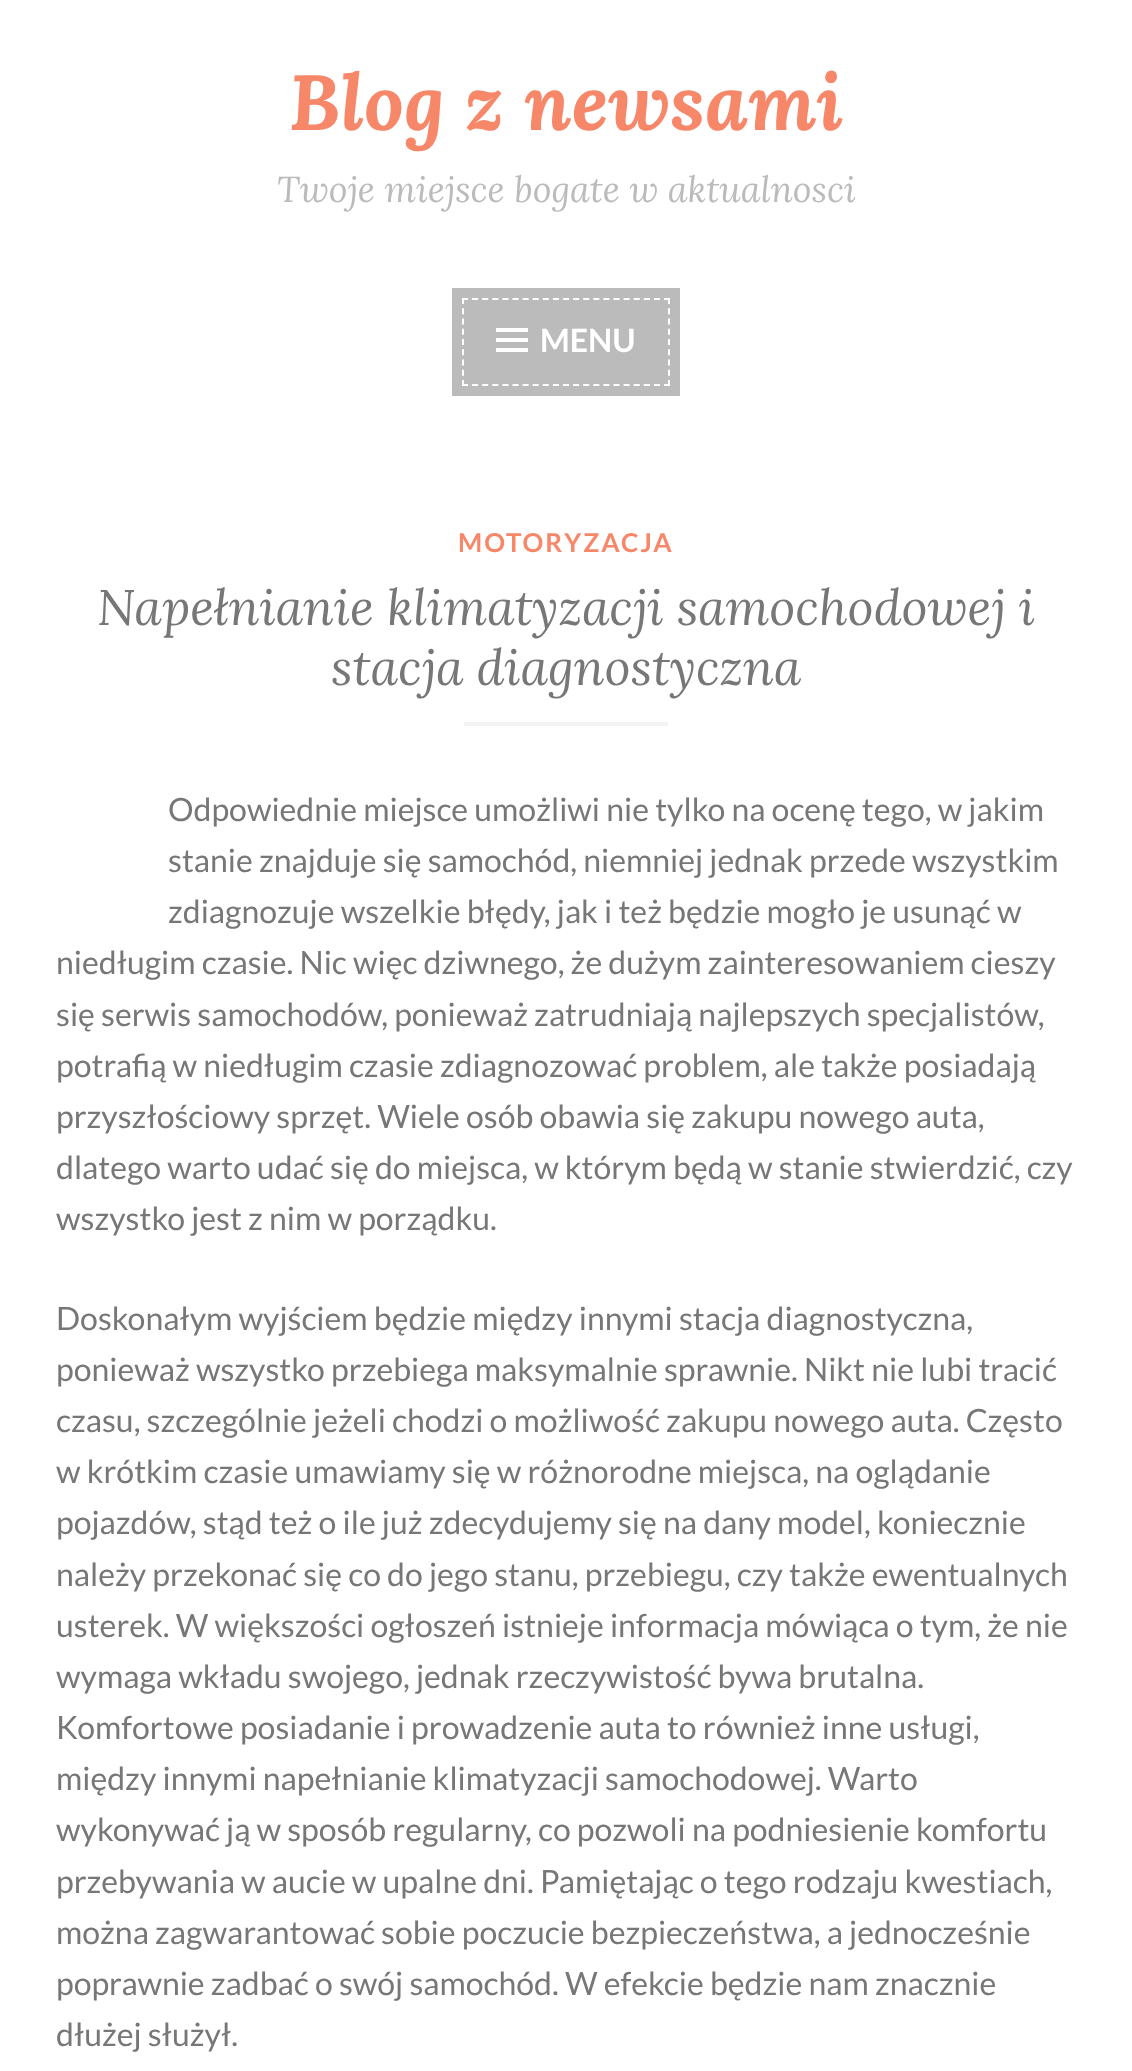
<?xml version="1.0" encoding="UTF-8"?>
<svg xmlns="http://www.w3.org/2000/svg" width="1132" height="2071">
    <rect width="100%" height="100%" fill="#FFFFFF"/>
    <text x="289" y="130" font-family="Lora" font-size="78" font-weight="700" font-style="italic" fill="#F78769">Blog z newsami</text>
    <text x="277" y="202" font-family="Lora" font-size="36" font-style="italic" fill="#BBBBBB">Twoje miejsce bogate w aktualnosci</text>
    <rect x="462" y="298" width="208" height="88" fill="#BBBBBB"/>
    <path d="M 462 299 H 670" fill="none" stroke="#FFFFFF" stroke-width="2" stroke-dasharray="6 4.1"/>
    <path d="M 669 298 V 386" fill="none" stroke="#FFFFFF" stroke-width="2" stroke-dasharray="6 4.24"/>
    <path d="M 462 385 H 670" fill="none" stroke="#FFFFFF" stroke-width="2" stroke-dasharray="6 4.1"/>
    <path d="M 463 298 V 386" fill="none" stroke="#FFFFFF" stroke-width="2" stroke-dasharray="6 4.24"/>
    <rect x="457" y="293" width="218" height="98" fill="none" stroke="#BBBBBB" stroke-width="10"/>
    <image x="496" y="328" width="32" height="24" href="img_01.png"/>
    <text x="540" y="352" font-family="Lato" font-size="32" font-weight="700" fill="#FFFFFF">MENU</text>
    <text x="458" y="552" font-family="Lato" font-size="26" font-weight="700" letter-spacing="2" fill="#F78769">MOTORYZACJA</text>
    <text x="97" y="625" font-family="Lora" font-size="50" font-style="italic" fill="#777777">Napełnianie klimatyzacji samochodowej i</text>
    <text x="331" y="685" font-family="Lora" font-size="50" font-style="italic" fill="#777777">stacja diagnostyczna</text>
    <rect x="464" y="722" width="204" height="4" fill="#F3F3F3"/>
    <text font-family="Lato" font-size="32" fill="#777777">
        <tspan x="168" y="821">Odpowiednie miejsce umożliwi nie tylko na ocenę tego, w jakim</tspan>
        <tspan x="168" y="872">stanie znajduje się samochód, niemniej jednak przede wszystkim</tspan>
        <tspan x="168" y="923">zdiagnozuje wszelkie błędy, jak i też będzie mogło je usunąć w</tspan>
    </text>
    <text font-family="Lato" font-size="32" fill="#777777">
        <tspan x="56" y="974">niedługim czasie. Nic więc dziwnego, że dużym zainteresowaniem cieszy</tspan>
        <tspan x="56" y="1026">się serwis samochodów, ponieważ zatrudniają najlepszych specjalistów,</tspan>
        <tspan x="56" y="1077">potrafią w niedługim czasie zdiagnozować problem, ale także posiadają</tspan>
        <tspan x="56" y="1128">przyszłościowy sprzęt. Wiele osób obawia się zakupu nowego auta,</tspan>
        <tspan x="56" y="1179">dlatego warto udać się do miejsca, w którym będą w stanie stwierdzić, czy</tspan>
        <tspan x="56" y="1230">wszystko jest z nim w porządku.</tspan>
    </text>
    <text font-family="Lato" font-size="32" fill="#777777">
        <tspan x="56" y="1330">Doskonałym wyjściem będzie między innymi stacja diagnostyczna,</tspan>
        <tspan x="56" y="1381">ponieważ wszystko przebiega maksymalnie sprawnie. Nikt nie lubi tracić</tspan>
        <tspan x="56" y="1432">czasu, szczególnie jeżeli chodzi o możliwość zakupu nowego auta. Często</tspan>
        <tspan x="56" y="1483">w krótkim czasie umawiamy się w różnorodne miejsca, na oglądanie</tspan>
        <tspan x="56" y="1534">pojazdów, stąd też o ile już zdecydujemy się na dany model, koniecznie</tspan>
        <tspan x="56" y="1586">należy przekonać się co do jego stanu, przebiegu, czy także ewentualnych</tspan>
        <tspan x="56" y="1637">usterek. W większości ogłoszeń istnieje informacja mówiąca o tym, że nie</tspan>
        <tspan x="56" y="1688">wymaga wkładu swojego, jednak rzeczywistość bywa brutalna.</tspan>
        <tspan x="56" y="1739">Komfortowe posiadanie i prowadzenie auta to również inne usługi,</tspan>
        <tspan x="56" y="1790">między innymi napełnianie klimatyzacji samochodowej. Warto</tspan>
        <tspan x="56" y="1841">wykonywać ją w sposób regularny, co pozwoli na podniesienie komfortu</tspan>
        <tspan x="56" y="1893">przebywania w aucie w upalne dni. Pamiętając o tego rodzaju kwestiach,</tspan>
        <tspan x="56" y="1944">można zagwarantować sobie poczucie bezpieczeństwa, a jednocześnie</tspan>
        <tspan x="56" y="1995">poprawnie zadbać o swój samochód. W efekcie będzie nam znacznie</tspan>
        <tspan x="56" y="2046">dłużej służył.</tspan>
    </text>
</svg>
